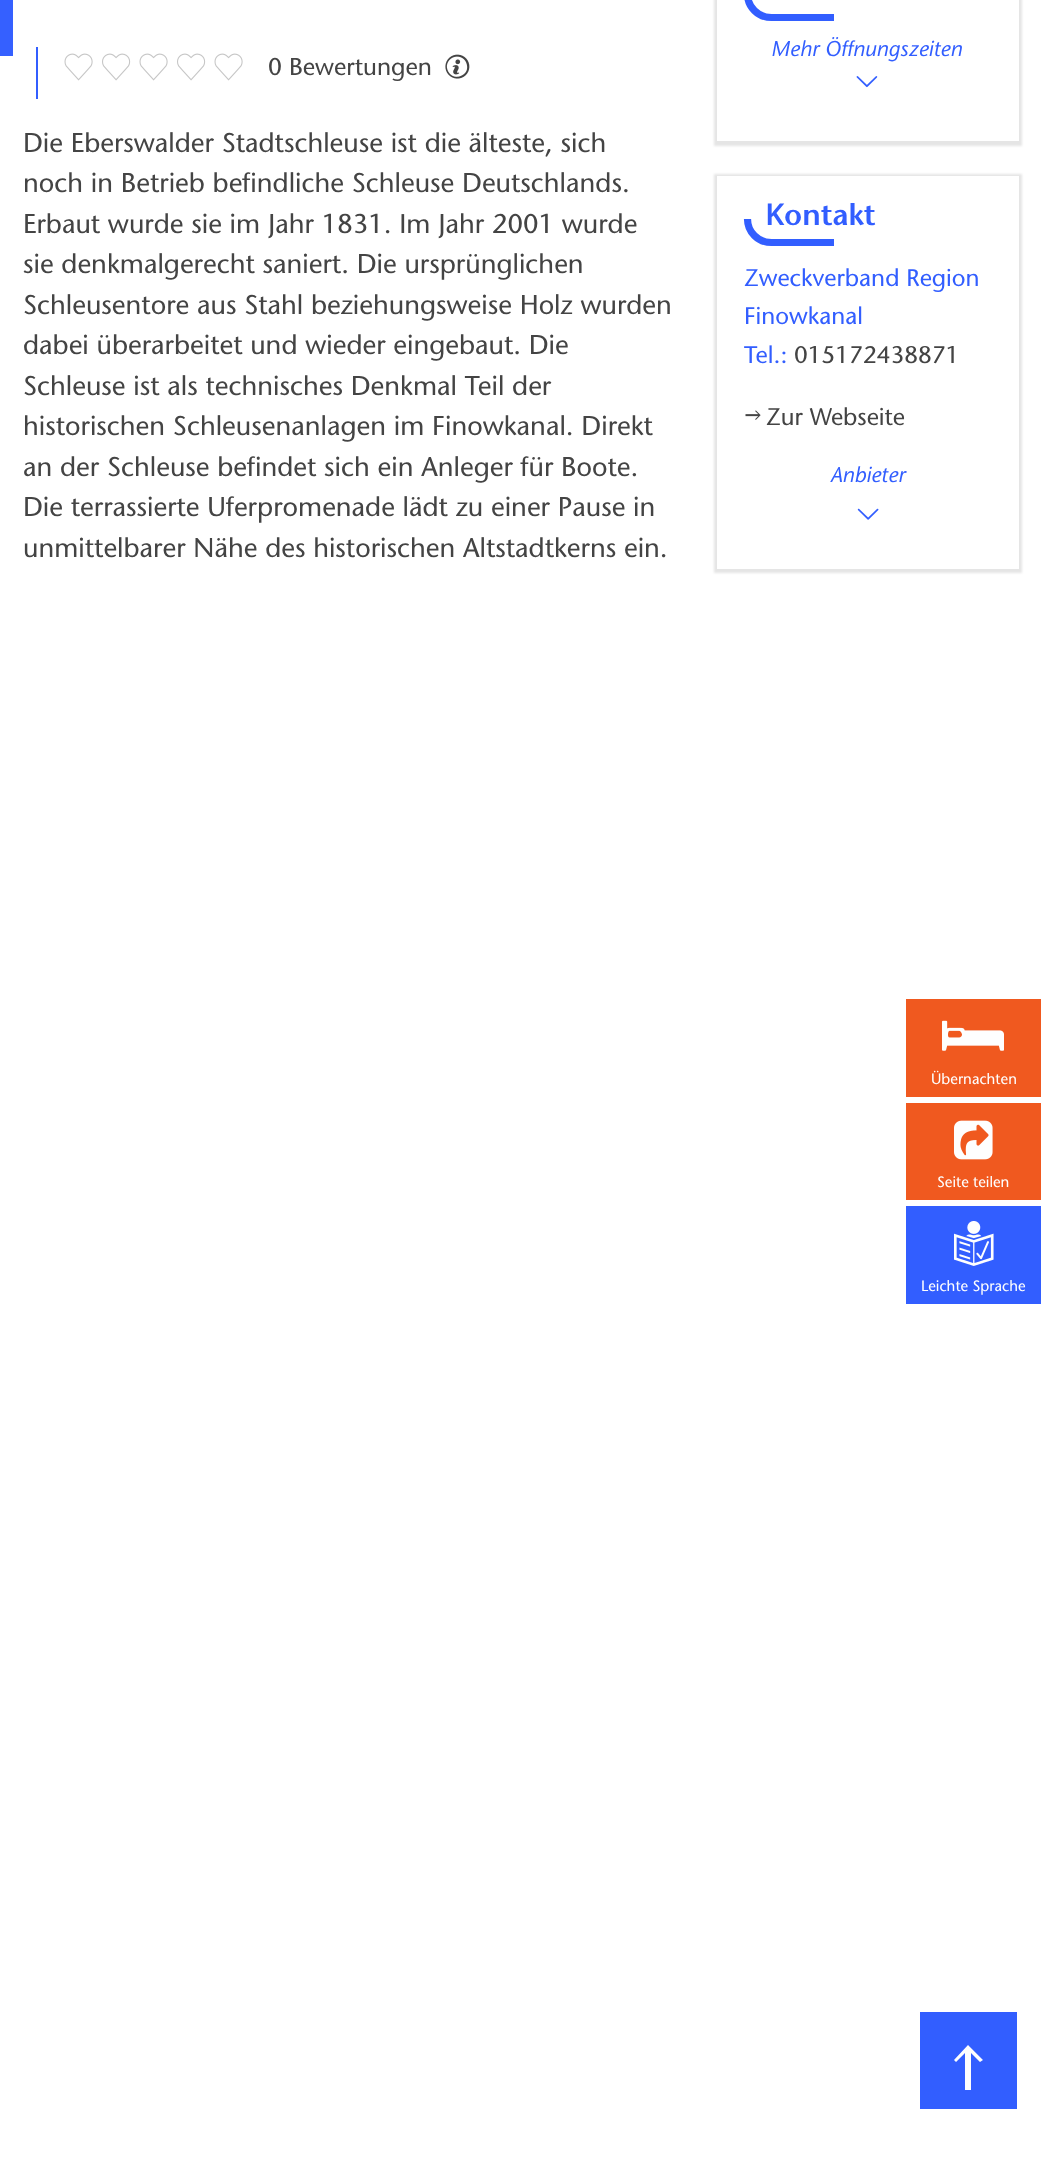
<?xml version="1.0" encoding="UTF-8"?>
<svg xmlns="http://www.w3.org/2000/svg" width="1041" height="2157">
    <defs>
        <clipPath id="clip1"><path d="M 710 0 H 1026 V 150 H 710 Z M 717 -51 H 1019 V 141 H 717 Z" clip-rule="evenodd"/></clipPath>
        <filter id="blur1" x="-50%" y="-200%" width="200%" height="500%"><feGaussianBlur stdDeviation="1"/></filter>
        <clipPath id="clip2"><path d="M 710 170 H 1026 V 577 H 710 Z M 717 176 H 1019 V 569 H 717 Z" clip-rule="evenodd"/></clipPath>
    </defs>
    <rect width="100%" height="100%" fill="#FFFFFF"/>
    <rect x="0" y="0" width="13" height="56" fill="#3560FF"/>
    <rect x="36" y="47" width="2" height="52" fill="#325EFF"/>
    <image x="64" y="53" width="29" height="28" href="img_01.png"/>
    <image x="102" y="53" width="29" height="28" href="img_02.png"/>
    <image x="139" y="53" width="29" height="28" href="img_01.png"/>
    <image x="177" y="53" width="29" height="28" href="img_02.png"/>
    <image x="214" y="53" width="29" height="28" href="img_01.png"/>
    <text x="268" y="75" font-family="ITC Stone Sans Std" font-size="24.25" font-weight="500" fill="#444444">0 Bewertungen</text>
    <image x="445" y="54" width="25" height="25" href="img_03.png"/>
    <text font-family="ITC Stone Sans Std" font-size="27" font-weight="500" fill="#444444">
        <tspan x="23" y="152">Die Eberswalder Stadtschleuse ist die älteste, sich</tspan>
        <tspan x="23" y="192">noch in Betrieb befindliche Schleuse Deutschlands.</tspan>
        <tspan x="23" y="233">Erbaut wurde sie im Jahr 1831. Im Jahr 2001 wurde</tspan>
        <tspan x="23" y="273">sie denkmalgerecht saniert. Die ursprünglichen</tspan>
        <tspan x="23" y="314">Schleusentore aus Stahl beziehungsweise Holz wurden</tspan>
        <tspan x="23" y="354">dabei überarbeitet und wieder eingebaut. Die</tspan>
        <tspan x="23" y="395">Schleuse ist als technisches Denkmal Teil der</tspan>
        <tspan x="23" y="435">historischen Schleusenanlagen im Finowkanal. Direkt</tspan>
        <tspan x="23" y="476">an der Schleuse befindet sich ein Anleger für Boote.</tspan>
        <tspan x="23" y="516">Die terrassierte Uferpromenade lädt zu einer Pause in</tspan>
        <tspan x="23" y="557">unmittelbarer Nähe des historischen Altstadtkerns ein.</tspan>
    </text>
    <g clip-path="url(#clip1)">
        <rect x="714" y="-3" width="308" height="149" fill="#DEDEDE" fill-opacity="0.8" filter="url(#blur1)"/>
    </g>
    <path d="M 747.5 -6 C 747.5 7 758 17.5 771.5 17.5" fill="none" stroke="#325EFF" stroke-width="7.2"/>
    <rect x="771" y="14" width="63" height="7" fill="#325EFF"/>
    <text x="771" y="56" font-family="ITC Stone Sans Std" font-size="21.5" font-weight="500" font-style="italic" fill="#325EFF">Mehr Öffnungszeiten</text>
    <image x="856" y="76" width="22" height="12" href="img_04.png"/>
    <g clip-path="url(#clip2)">
        <rect x="714" y="174" width="308" height="399" fill="#DEDEDE" fill-opacity="0.8" filter="url(#blur1)"/>
    </g>
    <text x="765" y="225" font-family="Noto Sans" font-size="30" font-weight="600" fill="#325EFF">K</text>
    <text x="784" y="225" font-family="ITC Stone Sans Std" font-size="30" font-weight="600" fill="#325EFF">ontakt</text>
    <path d="M 747.5 219 C 747.5 232 758 242.5 771.5 242.5" fill="none" stroke="#325EFF" stroke-width="7.2"/>
    <rect x="771" y="239" width="63" height="7" fill="#325EFF"/>
    <text font-family="ITC Stone Sans Std" font-size="24" font-weight="500" fill="#325EFF">
        <tspan x="744" y="286">Zweckverband Region</tspan>
        <tspan x="744" y="324">Finowkanal</tspan>
        <tspan x="744" y="363">Tel.:</tspan>
    </text>
    <text x="794" y="363" font-family="ITC Stone Sans Std" font-size="24" font-weight="500" fill="#444444">015172438871</text>
    <image x="745" y="410" width="16" height="10" href="img_05.png"/>
    <text x="766" y="425" font-family="ITC Stone Sans Std" font-size="24" font-weight="500" fill="#444444">Zur Webseite</text>
    <text x="830" y="482" font-family="ITC Stone Sans Std" font-size="21.5" font-weight="500" font-style="italic" fill="#325EFF">Anbieter</text>
    <image x="857" y="508" width="22" height="12" href="img_06.png"/>
    <rect x="906" y="999" width="135" height="98" fill="#F0591F"/>
    <image x="942" y="1020" width="62" height="31" href="img_07.png"/>
    <text x="931" y="1084" font-family="ITC Stone Sans Std" font-size="15" font-weight="500" fill="#FEFEFE">Übernachten</text>
    <rect x="906" y="1103" width="135" height="97" fill="#F0591F"/>
    <image x="954" y="1120" width="39" height="40" href="img_08.png"/>
    <text x="937" y="1187" font-family="ITC Stone Sans Std" font-size="15" font-weight="500" fill="#FEFEFE">Seite teilen</text>
    <rect x="906" y="1206" width="135" height="98" fill="#325EFF"/>
    <image x="954" y="1221" width="40" height="45" href="img_09.png"/>
    <text x="921" y="1291" font-family="ITC Stone Sans Std" font-size="15" font-weight="500" fill="#FEFEFE">Leichte Sprache</text>
    <rect x="920" y="2012" width="97" height="97" fill="#325EFF"/>
    <path d="M 971 2090 V 2053 L 980 2062 L 983 2060 L 968 2045 L 954 2060 L 956 2062 L 965 2053 V 2090 Z" fill="#FEFEFE"/>
</svg>
